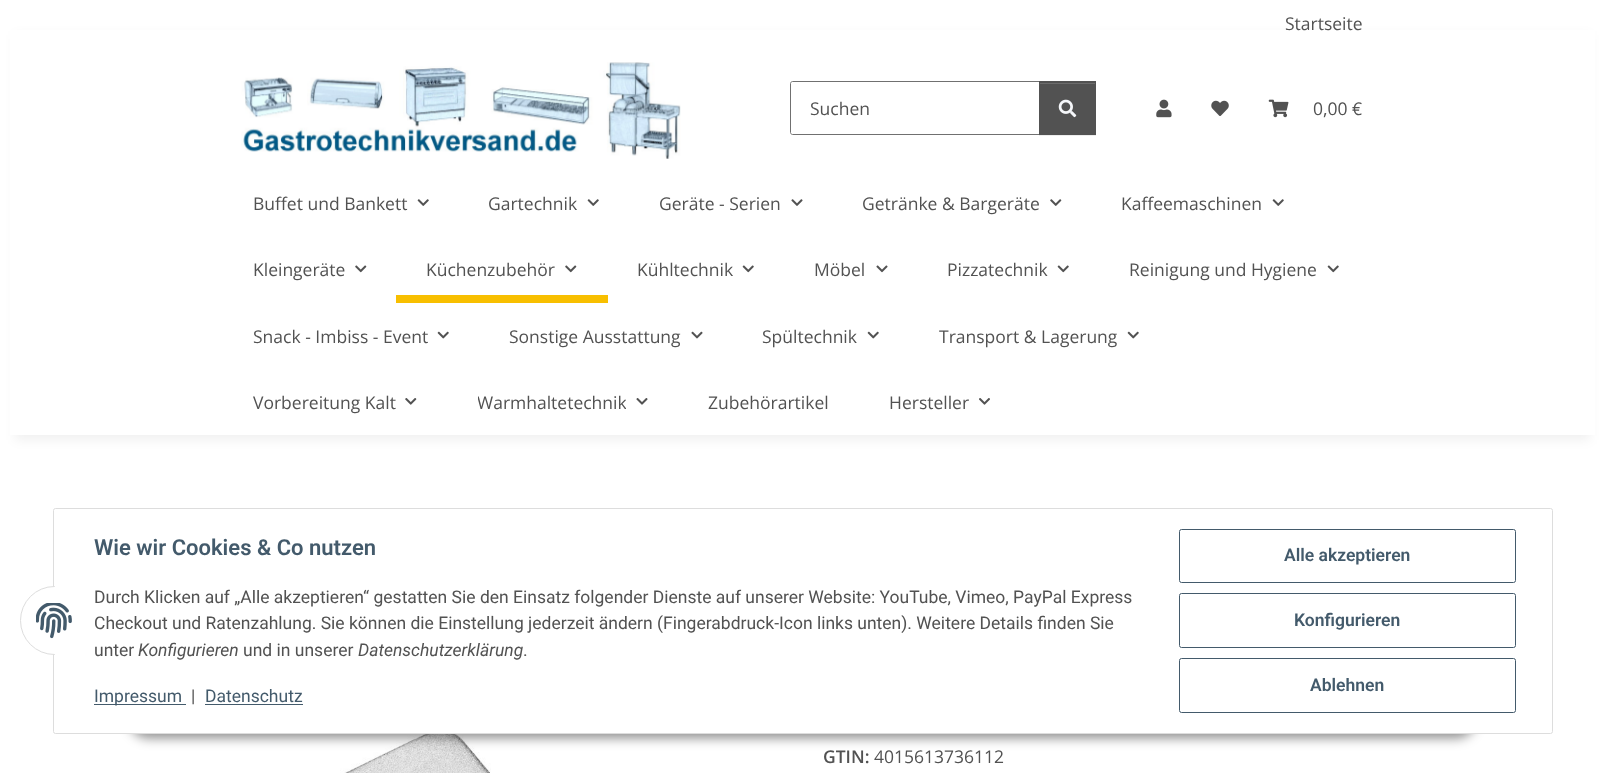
<?xml version="1.0" encoding="UTF-8"?>
<svg xmlns="http://www.w3.org/2000/svg" width="1605" height="773">
    <defs>
        <filter id="blur1" x="-50%" y="-200%" width="200%" height="500%"><feGaussianBlur stdDeviation="5.5"/></filter>
        <filter id="blur2" x="-50%" y="-200%" width="200%" height="500%"><feGaussianBlur stdDeviation="0.5"/></filter>
        <clipPath id="clip1"><rect x="478" y="389" width="148" height="26"/></clipPath>
        <filter id="blur3" x="-50%" y="-200%" width="200%" height="500%"><feGaussianBlur stdDeviation="6"/></filter>
    </defs>
    <rect width="100%" height="100%" fill="#FFFFFF"/>
    <rect x="15" y="35" width="1575" height="405" fill="#000000" fill-opacity="0.06" filter="url(#blur1)"/>
    <rect x="10" y="30" width="1585" height="405" fill="#FFFFFF"/>
    <text x="1285" y="30" font-family="Open Sans" font-size="17.5" fill="#525252">Startseite</text>
    <image x="241" y="62" width="440" height="97" href="img_01.png"/>
    <path d="M 792.5 81.5 H 1039.5 V 134.5 H 792.5 C 791.5 134.5 790.5 133.5 790.5 132.5 V 83.5 C 790.5 82.5 791.5 81.5 792.5 81.5 Z" fill="none" stroke="#707070"/>
    <text x="810" y="115" font-family="Open Sans" font-size="17.5" fill="#525252">Suchen</text>
    <rect x="1039" y="83" width="57" height="53" fill="#000000" fill-opacity="0.07" filter="url(#blur2)"/>
    <rect x="1039" y="81" width="57" height="54" fill="#525252"/>
    <rect x="1040" y="83" width="55" height="1" fill="#6C6C6C"/>
    <image x="1058" y="99" width="19" height="19" href="img_02.png"/>
    <image x="1156" y="99" width="16" height="19" href="img_03.png"/>
    <image x="1211" y="100" width="18" height="16" href="img_04.png"/>
    <image x="1268" y="99" width="21" height="19" href="img_05.png"/>
    <text x="1313" y="115" font-family="Open Sans" font-size="17.5" fill="#525252">0,00 €</text>
    <text x="253" y="210" font-family="Open Sans" font-size="17.5" fill="#525252">Buffet und Bankett</text>
    <image x="417" y="199" width="12" height="7" href="img_06.png"/>
    <text x="488" y="210" font-family="Open Sans" font-size="17.5" fill="#525252">Gartechnik</text>
    <image x="587" y="199" width="12" height="7" href="img_06.png"/>
    <text x="659" y="210" font-family="Open Sans" font-size="17.5" fill="#525252">Geräte - Serien</text>
    <image x="791" y="199" width="12" height="7" href="img_07.png"/>
    <text x="862" y="210" font-family="Open Sans" font-size="17.5" fill="#525252">Getränke &amp; Bargeräte</text>
    <image x="1050" y="199" width="12" height="7" href="img_08.png"/>
    <text x="1121" y="210" font-family="Open Sans" font-size="17.5" fill="#525252">Kaffeemaschinen</text>
    <image x="1272" y="199" width="12" height="7" href="img_06.png"/>
    <text x="253" y="276" font-family="Open Sans" font-size="17.5" fill="#525252">Kleingeräte</text>
    <image x="355" y="265" width="12" height="8" href="img_09.png"/>
    <text x="426" y="276" font-family="Open Sans" font-size="17.5" fill="#525252">Küchenzubehör</text>
    <image x="565" y="265" width="12" height="8" href="img_09.png"/>
    <rect x="396" y="295" width="212" height="8" fill="#F8BF00"/>
    <text x="637" y="276" font-family="Open Sans" font-size="17.5" fill="#525252">Kühltechnik</text>
    <image x="742" y="265" width="12" height="8" href="img_10.png"/>
    <text x="814" y="276" font-family="Open Sans" font-size="17.5" fill="#525252">Möbel</text>
    <image x="876" y="265" width="12" height="8" href="img_11.png"/>
    <text x="947" y="276" font-family="Open Sans" font-size="17.5" fill="#525252">Pizzatechnik</text>
    <image x="1057" y="265" width="12" height="8" href="img_10.png"/>
    <text x="1129" y="276" font-family="Open Sans" font-size="17.5" fill="#525252">Reinigung und Hygiene</text>
    <image x="1327" y="265" width="12" height="8" href="img_10.png"/>
    <text x="253" y="343" font-family="Open Sans" font-size="17.5" fill="#525252">Snack - Imbiss - Event</text>
    <image x="437" y="331" width="12" height="8" href="img_12.png"/>
    <text x="509" y="343" font-family="Open Sans" font-size="17.5" fill="#525252">Sonstige Ausstattung</text>
    <image x="691" y="331" width="12" height="8" href="img_13.png"/>
    <text x="762" y="343" font-family="Open Sans" font-size="17.5" fill="#525252">Spültechnik</text>
    <image x="867" y="331" width="12" height="8" href="img_12.png"/>
    <text x="939" y="343" font-family="Open Sans" font-size="17.5" fill="#525252">Transport &amp; Lagerung</text>
    <image x="1127" y="331" width="12" height="8" href="img_12.png"/>
    <text x="253" y="409" font-family="Open Sans" font-size="17.5" fill="#525252">Vorbereitung Kalt</text>
    <image x="405" y="398" width="12" height="7" href="img_14.png"/>
    <g clip-path="url(#clip1)">
        <text x="477" y="409" font-family="Open Sans" font-size="17.5" fill="#525252">Warmhaltetechnik</text>
    </g>
    <image x="636" y="398" width="12" height="7" href="img_15.png"/>
    <text x="708" y="409" font-family="Open Sans" font-size="17.5" fill="#525252">Zubehörartikel</text>
    <text x="889" y="409" font-family="Open Sans" font-size="17.5" fill="#525252">Hersteller</text>
    <image x="979" y="398" width="11" height="7" href="img_16.png"/>
    <image x="340" y="734" width="151" height="39" href="img_18.png"/>
    <rect x="129" y="698" width="1347" height="40" rx="20" fill="#000000" fill-opacity="0.45" filter="url(#blur3)"/>
    <rect x="53.5" y="508.5" width="1499" height="225" rx="2" fill="#FFFFFF" stroke="#DDDDDD"/>
    <circle cx="54.5" cy="620.5" r="34" fill="#FFFFFF" stroke="#DDDDDD"/>
    <rect x="55" y="586" width="34" height="69" fill="#FFFFFF"/>
    <image x="36" y="603" width="36" height="36" href="img_17.png"/>
    <text x="94" y="555" font-family="Roboto" font-size="22" font-weight="600" fill="#435A6B">Wie wir Cookies &amp; Co nutzen</text>
    <text font-family="Roboto" font-size="17.5" fill="#525252">
        <tspan x="94" y="603">Durch Klicken auf „Alle akzeptieren“ gestatten Sie den Einsatz folgender Dienste auf unserer Website: YouTube, Vimeo, PayPal Express</tspan>
        <tspan x="94" y="629">Checkout und Ratenzahlung. Sie können die Einstellung jederzeit ändern (Fingerabdruck-Icon links unten). Weitere Details finden Sie</tspan>
        <tspan x="94" y="656">unter</tspan>
    </text>
    <text x="138" y="656" font-family="Roboto" font-size="17.5" font-style="italic" fill="#525252">Konfigurieren</text>
    <text x="243" y="656" font-family="Roboto" font-size="17.5" fill="#525252">und in unserer</text>
    <text x="358" y="656" font-family="Roboto" font-size="17.5" font-style="italic" fill="#525252">Datenschutzerklärung</text>
    <text x="523" y="656" font-family="Roboto" font-size="17.5" fill="#525252">.</text>
    <rect x="94" y="704" width="92" height="1" fill="#435A6B"/>
    <text x="94" y="702" font-family="Roboto" font-size="17.5" fill="#435A6B">Impressum</text>
    <text x="191" y="702" font-family="Roboto" font-size="17.5" fill="#525252">|</text>
    <text x="205" y="702" font-family="Roboto" font-size="17.5" fill="#435A6B">Datenschutz</text>
    <rect x="205" y="704" width="98" height="1" fill="#435A6B"/>
    <rect x="1179.5" y="529.5" width="336" height="53" rx="2" fill="none" stroke="#435A6B"/>
    <text x="1284" y="561" font-family="Roboto" font-size="17.5" font-weight="600" fill="#435A6B">Alle akzeptieren</text>
    <rect x="1179.5" y="593.5" width="336" height="54" rx="2" fill="none" stroke="#435A6B"/>
    <text x="1294" y="626" font-family="Roboto" font-size="17.5" font-weight="600" fill="#435A6B">Konfigurieren</text>
    <rect x="1179.5" y="658.5" width="336" height="54" rx="2" fill="none" stroke="#435A6B"/>
    <text x="1310" y="691" font-family="Roboto" font-size="17.5" font-weight="600" fill="#435A6B">Ablehnen</text>
    <text x="823" y="763" font-family="Open Sans" font-size="17.5" font-weight="600" fill="#525252">GTIN:</text>
    <text x="874" y="763" font-family="Open Sans" font-size="17.5" fill="#525252">4015613736112</text>
</svg>
